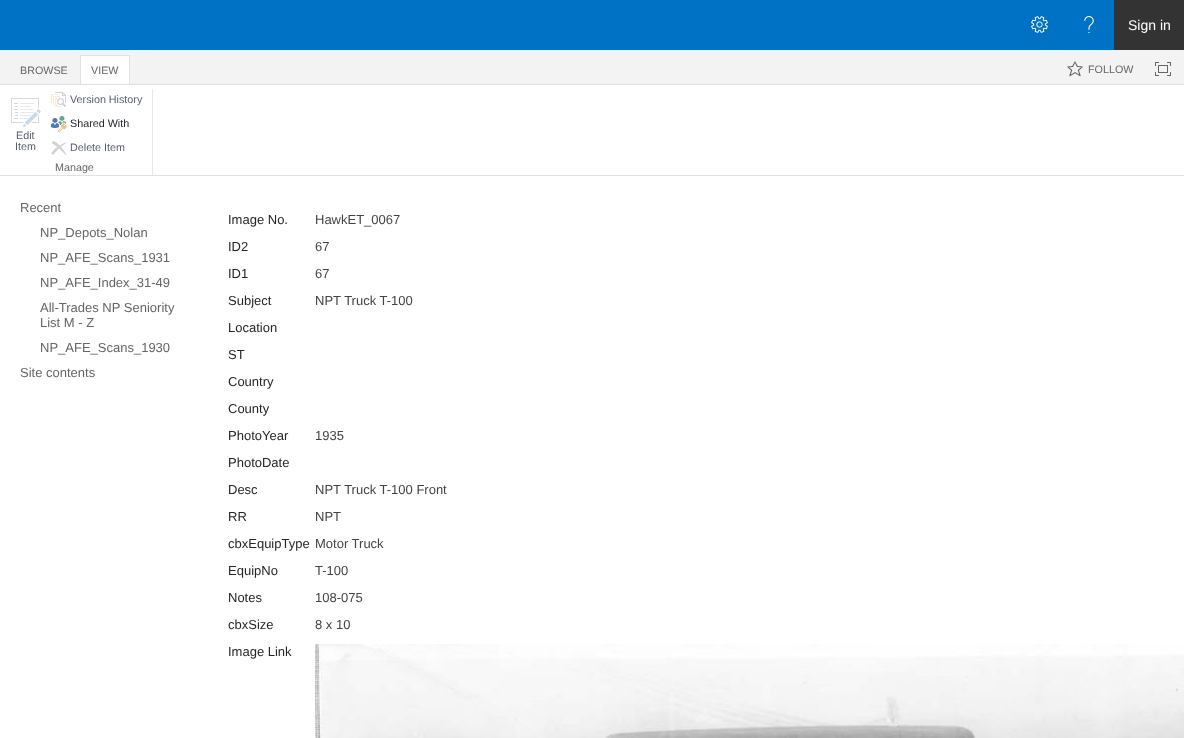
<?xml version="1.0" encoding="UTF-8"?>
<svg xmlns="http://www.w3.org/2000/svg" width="1184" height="738">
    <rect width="100%" height="100%" fill="#FFFFFF"/>
    <rect x="0" y="0" width="1114" height="50" fill="#0072C6"/>
    <image x="1031" y="16" width="17" height="17" href="img_01.png"/>
    <image x="1084" y="16" width="10" height="17" href="img_02.png"/>
    <rect x="1114" y="0" width="70" height="50" fill="#333333"/>
    <text x="1128" y="30" font-family="Liberation Sans" font-size="14" fill="#FFFFFF">Sign in</text>
    <rect x="0" y="50" width="1184" height="34" fill="#F3F3F3"/>
    <rect x="0" y="84" width="1184" height="1" fill="#E1E1E1"/>
    <text x="20" y="74" font-family="Liberation Sans" font-size="10.75" fill="#666666">BROWSE</text>
    <rect x="81" y="56" width="48" height="28" fill="#FFFFFF"/>
    <rect x="80" y="55" width="50" height="1" fill="#E1E1E1"/>
    <rect x="129" y="55" width="1" height="29" fill="#E1E1E1"/>
    <rect x="80" y="55" width="1" height="29" fill="#E1E1E1"/>
    <text x="91" y="74" font-family="Liberation Sans" font-size="10.75" fill="#666666">VIEW</text>
    <image x="1067" y="61" width="16" height="16" href="img_03.png"/>
    <text x="1088" y="73" font-family="Liberation Sans" font-size="10.75" fill="#666666">FOLLOW</text>
    <image x="1155" y="62" width="16" height="14" href="img_04.png"/>
    <rect x="0" y="175" width="1184" height="1" fill="#E1E1E1"/>
    <image x="11" y="98" width="30" height="29" href="img_05.png"/>
    <text x="16" y="139" font-family="Liberation Sans" font-size="10.75" fill="#5B626C">Edit</text>
    <text x="15" y="150" font-family="Liberation Sans" font-size="10.75" fill="#5B626C">Item</text>
    <image x="51" y="92" width="15" height="15" href="img_06.png"/>
    <text x="70" y="103" font-family="Liberation Sans" font-size="10.75" fill="#5B626C">Version History</text>
    <image x="51" y="116" width="16" height="16" href="img_07.png"/>
    <text x="70" y="127" font-family="Liberation Sans" font-size="10.75" fill="#23272C">Shared With</text>
    <image x="51" y="141" width="16" height="14" href="img_08.png"/>
    <text x="70" y="151" font-family="Liberation Sans" font-size="10.75" fill="#5B626C">Delete Item</text>
    <text x="55" y="171" font-family="Liberation Sans" font-size="10.75" fill="#666666">Manage</text>
    <rect x="152" y="89" width="1" height="86" fill="#E7E7E8"/>
    <text x="20" y="212" font-family="Liberation Sans" font-size="13" fill="#666666">Recent</text>
    <text font-family="Liberation Sans" font-size="13" fill="#666666">
        <tspan x="40" y="237">NP_Depots_Nolan</tspan>
        <tspan x="40" y="262">NP_AFE_Scans_1931</tspan>
        <tspan x="40" y="287">NP_AFE_Index_31-49</tspan>
        <tspan x="40" y="312">All-Trades NP Seniority</tspan>
        <tspan x="40" y="327">List M - Z</tspan>
        <tspan x="40" y="352">NP_AFE_Scans_1930</tspan>
    </text>
    <text x="20" y="377" font-family="Liberation Sans" font-size="13" fill="#666666">Site contents</text>
    <text x="228" y="224" font-family="Liberation Sans" font-size="13" fill="#262626">Image No.</text>
    <text x="315" y="224" font-family="Liberation Sans" font-size="13" fill="#444444">HawkET_0067</text>
    <text x="228" y="251" font-family="Liberation Sans" font-size="13" fill="#262626">ID2</text>
    <text x="315" y="251" font-family="Liberation Sans" font-size="13" fill="#444444">67</text>
    <text x="228" y="278" font-family="Liberation Sans" font-size="13" fill="#262626">ID1</text>
    <text x="315" y="278" font-family="Liberation Sans" font-size="13" fill="#444444">67</text>
    <text x="228" y="305" font-family="Liberation Sans" font-size="13" fill="#262626">Subject</text>
    <text x="315" y="305" font-family="Liberation Sans" font-size="13" fill="#444444">NPT Truck T-100</text>
    <text x="228" y="332" font-family="Liberation Sans" font-size="13" fill="#262626">Location</text>
    <text x="228" y="359" font-family="Liberation Sans" font-size="13" fill="#262626">ST</text>
    <text x="228" y="386" font-family="Liberation Sans" font-size="13" fill="#262626">Country</text>
    <text x="228" y="413" font-family="Liberation Sans" font-size="13" fill="#262626">County</text>
    <text x="228" y="440" font-family="Liberation Sans" font-size="13" fill="#262626">PhotoYear</text>
    <text x="315" y="440" font-family="Liberation Sans" font-size="13" fill="#444444">1935</text>
    <text x="228" y="467" font-family="Liberation Sans" font-size="13" fill="#262626">PhotoDate</text>
    <text x="228" y="494" font-family="Liberation Sans" font-size="13" fill="#262626">Desc</text>
    <text x="315" y="494" font-family="Liberation Sans" font-size="13" fill="#444444">NPT Truck T-100 Front</text>
    <text x="228" y="521" font-family="Liberation Sans" font-size="13" fill="#262626">RR</text>
    <text x="315" y="521" font-family="Liberation Sans" font-size="13" fill="#444444">NPT</text>
    <text x="228" y="548" font-family="Liberation Sans" font-size="13" fill="#262626">cbxEquipType</text>
    <text x="315" y="548" font-family="Liberation Sans" font-size="13" fill="#444444">Motor Truck</text>
    <text x="228" y="575" font-family="Liberation Sans" font-size="13" fill="#262626">EquipNo</text>
    <text x="315" y="575" font-family="Liberation Sans" font-size="13" fill="#444444">T-100</text>
    <text x="228" y="602" font-family="Liberation Sans" font-size="13" fill="#262626">Notes</text>
    <text x="315" y="602" font-family="Liberation Sans" font-size="13" fill="#444444">108-075</text>
    <text x="228" y="629" font-family="Liberation Sans" font-size="13" fill="#262626">cbxSize</text>
    <text x="315" y="629" font-family="Liberation Sans" font-size="13" fill="#444444">8 x 10</text>
    <text x="228" y="656" font-family="Liberation Sans" font-size="13" fill="#262626">Image Link</text>
    <image x="315" y="644" width="869" height="94" href="img_09.png"/>
</svg>
